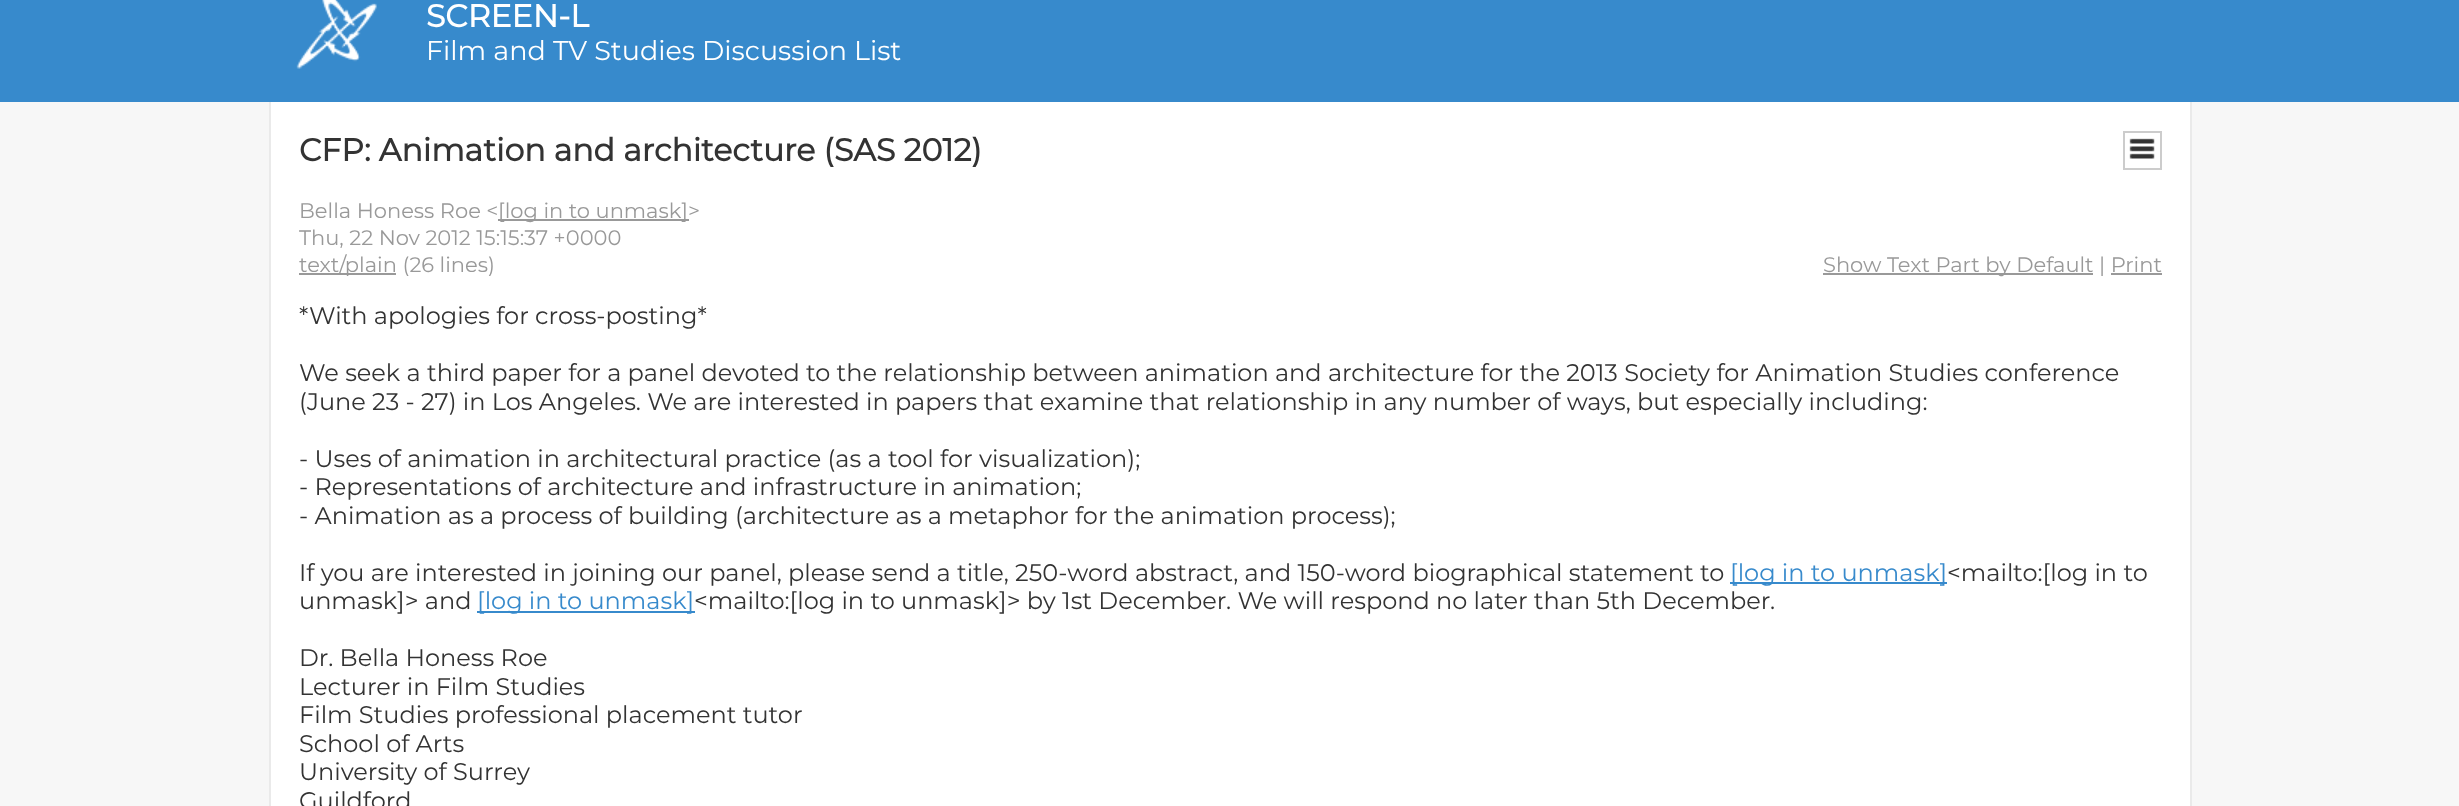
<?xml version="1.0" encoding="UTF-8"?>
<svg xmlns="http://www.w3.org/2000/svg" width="2459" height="806">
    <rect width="100%" height="100%" fill="#F7F7F7"/>
    <rect x="0" y="0" width="2459" height="102" fill="#378ACC"/>
    <image x="296" y="0" width="81" height="69" href="img_01.png"/>
    <text x="426" y="27" font-family="Montserrat" font-size="31.5" font-weight="700" fill="#FFFFFF">SCREEN-L</text>
    <text x="426" y="60" font-family="Montserrat" font-size="27" font-weight="100" fill="#FFFFFF">Film and TV Studies Discussion List</text>
    <rect x="271" y="102" width="1919" height="704" fill="#FFFFFF"/>
    <rect x="2190" y="102" width="2" height="704" fill="#EAEAEA"/>
    <rect x="269" y="102" width="2" height="704" fill="#EAEAEA"/>
    <rect x="2124" y="132" width="37" height="37" fill="none" stroke="#CCCCCC" stroke-width="2"/>
    <image x="2129" y="138" width="26" height="21" href="img_02.png"/>
    <text x="299" y="161" font-family="Montserrat" font-size="31.5" font-weight="700" fill="#333333">CFP: Animation and architecture (SAS 2012)</text>
    <text x="299" y="218" font-family="Montserrat" font-size="21" font-weight="100" fill="#999999">Bella Honess Roe &lt;</text>
    <rect x="498" y="219" width="191" height="2" fill="#999999"/>
    <text x="498" y="218" font-family="Montserrat" font-size="21" font-weight="100" fill="#999999">[log in to unmask]&gt;</text>
    <text x="299" y="245" font-family="Montserrat" font-size="21" font-weight="100" fill="#999999">Thu, 22 Nov 2012 15:15:37 +0000</text>
    <rect x="299" y="273" width="97" height="2" fill="#999999"/>
    <text x="299" y="272" font-family="Montserrat" font-size="21" font-weight="100" fill="#999999">text/plain (26 lines)</text>
    <rect x="1823" y="273" width="270" height="2" fill="#999999"/>
    <text x="1823" y="272" font-family="Montserrat" font-size="21" font-weight="100" fill="#999999">Show Text Part by Default | Print</text>
    <rect x="2111" y="273" width="51" height="2" fill="#999999"/>
    <text x="299" y="324" font-family="Montserrat" font-size="24" font-weight="100" fill="#333333">*With apologies for cross-posting*</text>
    <text font-family="Montserrat" font-size="24" font-weight="100" fill="#333333">
        <tspan x="299" y="381">We seek a third paper for a panel devoted to the relationship between animation and architecture for the 2013 Society for Animation Studies conference</tspan>
        <tspan x="299" y="410">(June 23 - 27) in Los Angeles. We are interested in papers that examine that relationship in any number of ways, but especially including:</tspan>
    </text>
    <text font-family="Montserrat" font-size="24" font-weight="100" fill="#333333">
        <tspan x="299" y="467">- Uses of animation in architectural practice (as a tool for visualization);</tspan>
        <tspan x="299" y="495">- Representations of architecture and infrastructure in animation;</tspan>
        <tspan x="299" y="524">- Animation as a process of building (architecture as a metaphor for the animation process);</tspan>
    </text>
    <text x="299" y="581" font-family="Montserrat" font-size="24" font-weight="100" fill="#333333">If you are interested in joining our panel, please send a title, 250-word abstract, and 150-word biographical statement to</text>
    <rect x="1730" y="582" width="217" height="2" fill="#378ACC"/>
    <text x="1730" y="581" font-family="Montserrat" font-size="24" font-weight="100" fill="#378ACC">[log in to unmask]</text>
    <text x="1947" y="581" font-family="Montserrat" font-size="24" font-weight="100" fill="#333333">&lt;mailto:[log in to</text>
    <text x="299" y="609" font-family="Montserrat" font-size="24" font-weight="100" fill="#333333">unmask]&gt; and</text>
    <rect x="477" y="611" width="218" height="2" fill="#378ACC"/>
    <text x="477" y="609" font-family="Montserrat" font-size="24" font-weight="100" fill="#378ACC">[log in to unmask]</text>
    <text x="694" y="609" font-family="Montserrat" font-size="24" font-weight="100" fill="#333333">&lt;mailto:[log in to unmask]&gt; by 1st December. We will respond no later than 5th December.</text>
    <text font-family="Montserrat" font-size="24" font-weight="100" fill="#333333">
        <tspan x="299" y="666">Dr. Bella Honess Roe</tspan>
        <tspan x="299" y="695">Lecturer in Film Studies</tspan>
        <tspan x="299" y="723">Film Studies professional placement tutor</tspan>
        <tspan x="299" y="752">School of Arts</tspan>
        <tspan x="299" y="780">University of Surrey</tspan>
        <tspan x="299" y="809">Guildford</tspan>
    </text>
</svg>
